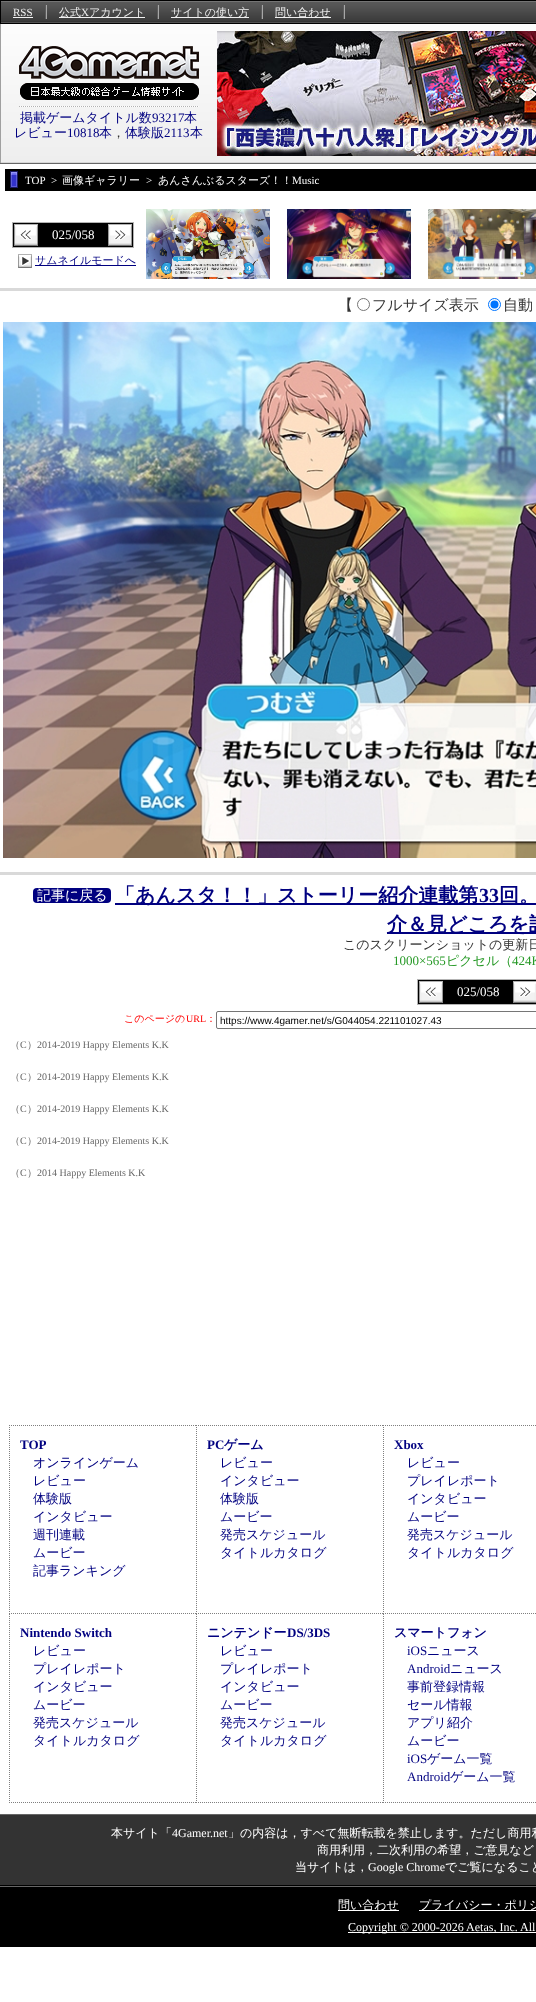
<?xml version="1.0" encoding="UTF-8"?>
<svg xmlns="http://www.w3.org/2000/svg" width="536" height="2002">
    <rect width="100%" height="100%" fill="#FFFFFF"/>
    <image x="1" y="0" width="535" height="163" href="img_01.png"/>
    <rect x="0" y="163" width="536" height="1" fill="#666666"/>
    <rect x="0" y="0" width="1" height="24" fill="#000000"/>
    <rect x="46" y="5" width="1" height="14" fill="#A7A7A7"/>
    <rect x="45" y="5" width="1" height="14" fill="#5D5D5D"/>
    <text x="13" y="16" font-family="Liberation Serif" font-size="11" fill="#F0F0F0">RSS</text>
    <rect x="13" y="17" width="20" height="1" fill="#F0F0F0"/>
    <rect x="158" y="5" width="1" height="14" fill="#A7A7A7"/>
    <rect x="157" y="5" width="1" height="14" fill="#5D5D5D"/>
    <rect x="59" y="17" width="86" height="1" fill="#F0F0F0"/>
    <text x="59" y="16" font-family="WenQuanYi Zen Hei" font-size="11" font-weight="500" fill="#F0F0F0">公式</text>
    <text x="81" y="16" font-family="Liberation Serif" font-size="11" fill="#F0F0F0">X</text>
    <text x="89" y="16" font-family="WenQuanYi Zen Hei" font-size="11" font-weight="500" fill="#F0F0F0">アカウント</text>
    <rect x="262" y="5" width="1" height="14" fill="#A7A7A7"/>
    <rect x="261" y="5" width="1" height="14" fill="#5D5D5D"/>
    <rect x="171" y="17" width="78" height="1" fill="#F0F0F0"/>
    <text x="171" y="16" font-family="WenQuanYi Zen Hei" font-size="11" font-weight="500" fill="#F0F0F0">サイトの使い方</text>
    <rect x="344" y="5" width="1" height="14" fill="#A7A7A7"/>
    <rect x="343" y="5" width="1" height="14" fill="#5D5D5D"/>
    <rect x="275" y="17" width="56" height="1" fill="#F0F0F0"/>
    <text x="275" y="16" font-family="WenQuanYi Zen Hei" font-size="11" font-weight="500" fill="#F0F0F0">問い合わせ</text>
    <rect x="0" y="24" width="1" height="139" fill="#A0A0A0"/>
    <image x="19" y="46" width="180" height="54" href="img_02.png"/>
    <image x="19" y="106" width="180" height="1" href="img_03.png"/>
    <text x="20" y="122" font-family="WenQuanYi Zen Hei" font-size="13" font-weight="500" fill="#000080">掲載ゲームタイトル数</text>
    <text x="152" y="122" font-family="Liberation Serif" font-size="13" fill="#000080">93217</text>
    <text x="184" y="122" font-family="WenQuanYi Zen Hei" font-size="13" font-weight="500" fill="#000080">本</text>
    <text x="14" y="137" font-family="WenQuanYi Zen Hei" font-size="13" font-weight="500" fill="#000080">レビュー</text>
    <text x="67" y="137" font-family="Liberation Serif" font-size="13" fill="#000080">10818</text>
    <text x="99" y="137" font-family="WenQuanYi Zen Hei" font-size="13" font-weight="500" fill="#000080">本</text>
    <text x="112" y="137" font-family="WenQuanYi Zen Hei" font-size="13" font-weight="500" fill="#333333">，</text>
    <text x="125" y="137" font-family="WenQuanYi Zen Hei" font-size="13" font-weight="500" fill="#000080">体験版</text>
    <text x="164" y="137" font-family="Liberation Serif" font-size="13" fill="#000080">2113</text>
    <text x="190" y="137" font-family="WenQuanYi Zen Hei" font-size="13" font-weight="500" fill="#000080">本</text>
    <image x="217" y="31" width="319" height="125" href="img_04.png"/>
    <rect x="5" y="169" width="531" height="22" fill="#000000"/>
    <image x="10" y="171" width="8" height="17" href="img_05.png"/>
    <text x="25" y="184" font-family="Liberation Serif" font-size="11" fill="#FFFFFF">TOP</text>
    <text x="51" y="184" font-family="Liberation Serif" font-size="11" fill="#FFFFFF">&gt;</text>
    <text x="62" y="184" font-family="WenQuanYi Zen Hei" font-size="11" font-weight="500" fill="#FFFFFF">画像ギャラリー</text>
    <text x="146" y="184" font-family="Liberation Serif" font-size="11" fill="#FFFFFF">&gt;</text>
    <text x="158" y="184" font-family="WenQuanYi Zen Hei" font-size="11" font-weight="500" fill="#FFFFFF">あんさんぶるスターズ！！</text>
    <text x="292" y="184" font-family="Liberation Serif" font-size="11" fill="#FFFFFF">Music</text>
    <rect x="0" y="288" width="536" height="3" fill="#D9D9D9"/>
    <rect x="12.5" y="222.5" width="121" height="25" fill="#000000" stroke="#B3B3B3"/>
    <image x="14" y="224" width="24" height="22" href="img_06.png"/>
    <text x="52" y="239" font-family="Liberation Serif" font-size="13" fill="#FFFFFF">025/058</text>
    <image x="108" y="224" width="24" height="22" href="img_07.png"/>
    <image x="18" y="254" width="14" height="14" href="img_08.png"/>
    <rect x="35" y="265" width="101" height="1" fill="#000080"/>
    <text x="35" y="264" font-family="WenQuanYi Zen Hei" font-size="11" font-weight="500" fill="#000080">サムネイルモードへ</text>
    <image x="146" y="209" width="124" height="70" href="img_09.png"/>
    <image x="287" y="209" width="124" height="70" href="img_10.png"/>
    <image x="428" y="209" width="108" height="70" href="img_11.png"/>
    <text x="338" y="310" font-family="WenQuanYi Zen Hei" font-size="15" font-weight="500" fill="#333333">【</text>
    <circle cx="363.5" cy="304.5" r="6" fill="none" stroke="#767676"/>
    <text x="372" y="310" font-family="WenQuanYi Zen Hei" font-size="15" font-weight="500" fill="#333333">フルサイズ表示</text>
    <circle cx="494.5" cy="304.5" r="6" fill="none" stroke="#0075FF"/>
    <circle cx="494.5" cy="304.5" r="4" fill="#0075FF"/>
    <text x="503" y="310" font-family="WenQuanYi Zen Hei" font-size="15" font-weight="500" fill="#333333">自動</text>
    <image x="3" y="322" width="533" height="536" href="img_12.png"/>
    <rect x="0" y="872" width="536" height="3" fill="#D9D9D9"/>
    <rect x="33" y="888" width="78" height="15" rx="4" fill="#000080"/>
    <text x="37" y="900" font-family="WenQuanYi Zen Hei" font-size="14" font-weight="500" fill="#FFFFFF">記事に戻る</text>
    <rect x="115" y="903" width="421" height="2" fill="#000080"/>
    <text x="115" y="902" font-family="WenQuanYi Zen Hei" font-size="20" font-weight="700" fill="#000080">「あんスタ！！」ストーリー紹介連載第</text>
    <text x="479" y="902" font-family="Liberation Serif" font-size="20" font-weight="700" fill="#000080">33</text>
    <text x="499" y="902" font-family="WenQuanYi Zen Hei" font-size="20" font-weight="700" fill="#000080">回。</text>
    <rect x="387" y="932" width="149" height="2" fill="#000080"/>
    <text x="387" y="931" font-family="WenQuanYi Zen Hei" font-size="20" font-weight="700" fill="#000080">介＆見どころを語</text>
    <text x="343" y="949" font-family="WenQuanYi Zen Hei" font-size="13" font-weight="500" fill="#333333">このスクリーンショットの更新日</text>
    <text x="393" y="965" font-family="Liberation Serif" font-size="13" fill="#269926">1000×565</text>
    <text x="446" y="965" font-family="WenQuanYi Zen Hei" font-size="13" font-weight="500" fill="#269926">ピクセル（</text>
    <text x="512" y="965" font-family="Liberation Serif" font-size="13" fill="#269926">424K</text>
    <rect x="417.5" y="979.5" width="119" height="25" fill="#000000" stroke="#B3B3B3"/>
    <image x="419" y="981" width="24" height="22" href="img_06.png"/>
    <text x="457" y="996" font-family="Liberation Serif" font-size="13" fill="#FFFFFF">025/058</text>
    <image x="513" y="981" width="23" height="22" href="img_13.png"/>
    <text x="124" y="1022" font-family="WenQuanYi Zen Hei" font-size="10" font-weight="500" fill="#FF0000">このページの</text>
    <text x="186" y="1022" font-family="Liberation Serif" font-size="10" fill="#FF0000">URL</text>
    <text x="206" y="1022" font-family="WenQuanYi Zen Hei" font-size="10" font-weight="500" fill="#FF0000">：</text>
    <rect x="216.5" y="1011.5" width="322" height="17" rx="1.5" fill="none" stroke="#767676"/>
    <text x="220" y="1024" font-family="Liberation Sans" font-size="10" fill="#000000">https://www.4gamer.net/s/G044054.221101027.43</text>
    <text x="10" y="1048" font-family="WenQuanYi Zen Hei" font-size="10" font-weight="500" fill="#666666">（</text>
    <text x="20" y="1048" font-family="Liberation Serif" font-size="10" fill="#666666">C</text>
    <text x="27" y="1048" font-family="WenQuanYi Zen Hei" font-size="10" font-weight="500" fill="#666666">）</text>
    <text x="37" y="1048" font-family="Liberation Serif" font-size="10" fill="#666666">2014-2019 Happy Elements K.K</text>
    <text x="10" y="1080" font-family="WenQuanYi Zen Hei" font-size="10" font-weight="500" fill="#666666">（</text>
    <text x="20" y="1080" font-family="Liberation Serif" font-size="10" fill="#666666">C</text>
    <text x="27" y="1080" font-family="WenQuanYi Zen Hei" font-size="10" font-weight="500" fill="#666666">）</text>
    <text x="37" y="1080" font-family="Liberation Serif" font-size="10" fill="#666666">2014-2019 Happy Elements K.K</text>
    <text x="10" y="1112" font-family="WenQuanYi Zen Hei" font-size="10" font-weight="500" fill="#666666">（</text>
    <text x="20" y="1112" font-family="Liberation Serif" font-size="10" fill="#666666">C</text>
    <text x="27" y="1112" font-family="WenQuanYi Zen Hei" font-size="10" font-weight="500" fill="#666666">）</text>
    <text x="37" y="1112" font-family="Liberation Serif" font-size="10" fill="#666666">2014-2019 Happy Elements K.K</text>
    <text x="10" y="1144" font-family="WenQuanYi Zen Hei" font-size="10" font-weight="500" fill="#666666">（</text>
    <text x="20" y="1144" font-family="Liberation Serif" font-size="10" fill="#666666">C</text>
    <text x="27" y="1144" font-family="WenQuanYi Zen Hei" font-size="10" font-weight="500" fill="#666666">）</text>
    <text x="37" y="1144" font-family="Liberation Serif" font-size="10" fill="#666666">2014-2019 Happy Elements K.K</text>
    <text x="10" y="1176" font-family="WenQuanYi Zen Hei" font-size="10" font-weight="500" fill="#666666">（</text>
    <text x="20" y="1176" font-family="Liberation Serif" font-size="10" fill="#666666">C</text>
    <text x="27" y="1176" font-family="WenQuanYi Zen Hei" font-size="10" font-weight="500" fill="#666666">）</text>
    <text x="37" y="1176" font-family="Liberation Serif" font-size="10" fill="#666666">2014 Happy Elements K.K</text>
    <path d="M 9 1425.5 H 196" fill="none" stroke="#7F7F7F" stroke-dasharray="1 1"/>
    <path d="M 9 1613.5 H 196" fill="none" stroke="#7F7F7F" stroke-dasharray="1 1"/>
    <path d="M 9.5 1425 V 1614" fill="none" stroke="#7F7F7F" stroke-dasharray="1 1"/>
    <text x="20" y="1449" font-family="Liberation Serif" font-size="13" font-weight="700" fill="#000080">TOP</text>
    <text font-family="WenQuanYi Zen Hei" font-size="13" font-weight="500" fill="#000080">
        <tspan x="33" y="1467">オンラインゲーム</tspan>
        <tspan x="33" y="1485">レビュー</tspan>
        <tspan x="33" y="1503">体験版</tspan>
        <tspan x="33" y="1521">インタビュー</tspan>
        <tspan x="33" y="1539">週刊連載</tspan>
        <tspan x="33" y="1557">ムービー</tspan>
        <tspan x="33" y="1575">記事ランキング</tspan>
    </text>
    <path d="M 196 1425.5 H 383" fill="none" stroke="#7F7F7F" stroke-dasharray="1 1"/>
    <path d="M 196 1613.5 H 383" fill="none" stroke="#7F7F7F" stroke-dasharray="1 1"/>
    <path d="M 196.5 1425 V 1614" fill="none" stroke="#7F7F7F" stroke-dasharray="1 1"/>
    <text x="207" y="1449" font-family="Liberation Serif" font-size="13" font-weight="700" fill="#000080">PC</text>
    <text x="224" y="1449" font-family="WenQuanYi Zen Hei" font-size="13" font-weight="700" fill="#000080">ゲーム</text>
    <text font-family="WenQuanYi Zen Hei" font-size="13" font-weight="500" fill="#000080">
        <tspan x="220" y="1467">レビュー</tspan>
        <tspan x="220" y="1485">インタビュー</tspan>
        <tspan x="220" y="1503">体験版</tspan>
        <tspan x="220" y="1521">ムービー</tspan>
        <tspan x="220" y="1539">発売スケジュール</tspan>
        <tspan x="220" y="1557">タイトルカタログ</tspan>
    </text>
    <path d="M 383 1425.5 H 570" fill="none" stroke="#7F7F7F" stroke-dasharray="1 1"/>
    <path d="M 383 1613.5 H 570" fill="none" stroke="#7F7F7F" stroke-dasharray="1 1"/>
    <path d="M 383.5 1425 V 1614" fill="none" stroke="#7F7F7F" stroke-dasharray="1 1"/>
    <text x="394" y="1449" font-family="Liberation Serif" font-size="13" font-weight="700" fill="#000080">Xbox</text>
    <text font-family="WenQuanYi Zen Hei" font-size="13" font-weight="500" fill="#000080">
        <tspan x="407" y="1467">レビュー</tspan>
        <tspan x="407" y="1485">プレイレポート</tspan>
        <tspan x="407" y="1503">インタビュー</tspan>
        <tspan x="407" y="1521">ムービー</tspan>
        <tspan x="407" y="1539">発売スケジュール</tspan>
        <tspan x="407" y="1557">タイトルカタログ</tspan>
    </text>
    <path d="M 9 1802.5 H 196" fill="none" stroke="#7F7F7F" stroke-dasharray="1 1"/>
    <path d="M 9.5 1614 V 1803" fill="none" stroke="#7F7F7F" stroke-dasharray="1 1"/>
    <text x="20" y="1637" font-family="Liberation Serif" font-size="13" font-weight="700" fill="#000080">Nintendo Switch</text>
    <text font-family="WenQuanYi Zen Hei" font-size="13" font-weight="500" fill="#000080">
        <tspan x="33" y="1655">レビュー</tspan>
        <tspan x="33" y="1673">プレイレポート</tspan>
        <tspan x="33" y="1691">インタビュー</tspan>
        <tspan x="33" y="1709">ムービー</tspan>
        <tspan x="33" y="1727">発売スケジュール</tspan>
        <tspan x="33" y="1745">タイトルカタログ</tspan>
    </text>
    <path d="M 196 1802.5 H 383" fill="none" stroke="#7F7F7F" stroke-dasharray="1 1"/>
    <path d="M 196.5 1614 V 1803" fill="none" stroke="#7F7F7F" stroke-dasharray="1 1"/>
    <text x="207" y="1637" font-family="WenQuanYi Zen Hei" font-size="13" font-weight="700" fill="#000080">ニンテンドー</text>
    <text x="287" y="1637" font-family="Liberation Serif" font-size="13" font-weight="700" fill="#000080">DS/3DS</text>
    <text font-family="WenQuanYi Zen Hei" font-size="13" font-weight="500" fill="#000080">
        <tspan x="220" y="1655">レビュー</tspan>
        <tspan x="220" y="1673">プレイレポート</tspan>
        <tspan x="220" y="1691">インタビュー</tspan>
        <tspan x="220" y="1709">ムービー</tspan>
        <tspan x="220" y="1727">発売スケジュール</tspan>
        <tspan x="220" y="1745">タイトルカタログ</tspan>
    </text>
    <path d="M 383 1802.5 H 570" fill="none" stroke="#7F7F7F" stroke-dasharray="1 1"/>
    <path d="M 383.5 1614 V 1803" fill="none" stroke="#7F7F7F" stroke-dasharray="1 1"/>
    <text x="394" y="1637" font-family="WenQuanYi Zen Hei" font-size="13" font-weight="700" fill="#000080">スマートフォン</text>
    <text x="407" y="1655" font-family="Liberation Serif" font-size="13" fill="#000080">iOS</text>
    <text x="427" y="1655" font-family="WenQuanYi Zen Hei" font-size="13" font-weight="500" fill="#000080">ニュース</text>
    <text x="407" y="1673" font-family="Liberation Serif" font-size="13" fill="#000080">Android</text>
    <text x="450" y="1673" font-family="WenQuanYi Zen Hei" font-size="13" font-weight="500" fill="#000080">ニュース</text>
    <text font-family="WenQuanYi Zen Hei" font-size="13" font-weight="500" fill="#000080">
        <tspan x="407" y="1691">事前登録情報</tspan>
        <tspan x="407" y="1709">セール情報</tspan>
        <tspan x="407" y="1727">アプリ紹介</tspan>
        <tspan x="407" y="1745">ムービー</tspan>
    </text>
    <text x="407" y="1763" font-family="Liberation Serif" font-size="13" fill="#000080">iOS</text>
    <text x="427" y="1763" font-family="WenQuanYi Zen Hei" font-size="13" font-weight="500" fill="#000080">ゲーム一覧</text>
    <text x="407" y="1781" font-family="Liberation Serif" font-size="13" fill="#000080">Android</text>
    <text x="450" y="1781" font-family="WenQuanYi Zen Hei" font-size="13" font-weight="500" fill="#000080">ゲーム一覧</text>
    <rect x="0" y="1815" width="536" height="70" fill="#333333"/>
    <rect x="0" y="1814" width="536" height="1" fill="#666666"/>
    <rect x="0" y="1885" width="536" height="1" fill="#000000"/>
    <text x="111" y="1837" font-family="WenQuanYi Zen Hei" font-size="12" font-weight="500" fill="#FFFFFF">本サイト「</text>
    <text x="172" y="1837" font-family="Liberation Serif" font-size="12" fill="#FFFFFF">4Gamer.net</text>
    <text x="228" y="1837" font-family="WenQuanYi Zen Hei" font-size="12" font-weight="500" fill="#FFFFFF">」の内容は，すべて無断転載を禁止します。ただし商用利</text>
    <text x="317" y="1854" font-family="WenQuanYi Zen Hei" font-size="12" font-weight="500" fill="#FFFFFF">商用利用，二次利用の希望，ご意見など</text>
    <text x="295" y="1871" font-family="WenQuanYi Zen Hei" font-size="12" font-weight="500" fill="#FFFFFF">当サイトは，</text>
    <text x="368" y="1871" font-family="Liberation Serif" font-size="12" fill="#FFFFFF">Google Chrome</text>
    <text x="445" y="1871" font-family="WenQuanYi Zen Hei" font-size="12" font-weight="500" fill="#FFFFFF">でご覧になること</text>
    <rect x="0" y="1887" width="536" height="60" fill="#000000"/>
    <rect x="0" y="1886" width="536" height="1" fill="#666666"/>
    <rect x="338" y="1910" width="61" height="1" fill="#FFFFFF"/>
    <text x="338" y="1909" font-family="WenQuanYi Zen Hei" font-size="12" font-weight="500" fill="#FFFFFF">問い合わせ</text>
    <rect x="419" y="1910" width="117" height="1" fill="#FFFFFF"/>
    <text x="419" y="1909" font-family="WenQuanYi Zen Hei" font-size="12" font-weight="500" fill="#FFFFFF">プライバシー・ポリシ</text>
    <rect x="348" y="1932" width="188" height="1" fill="#FFFFFF"/>
    <text x="348" y="1931" font-family="Liberation Serif" font-size="12" fill="#FFFFFF">Copyright © 2000-2026 Aetas, Inc. All</text>
</svg>
